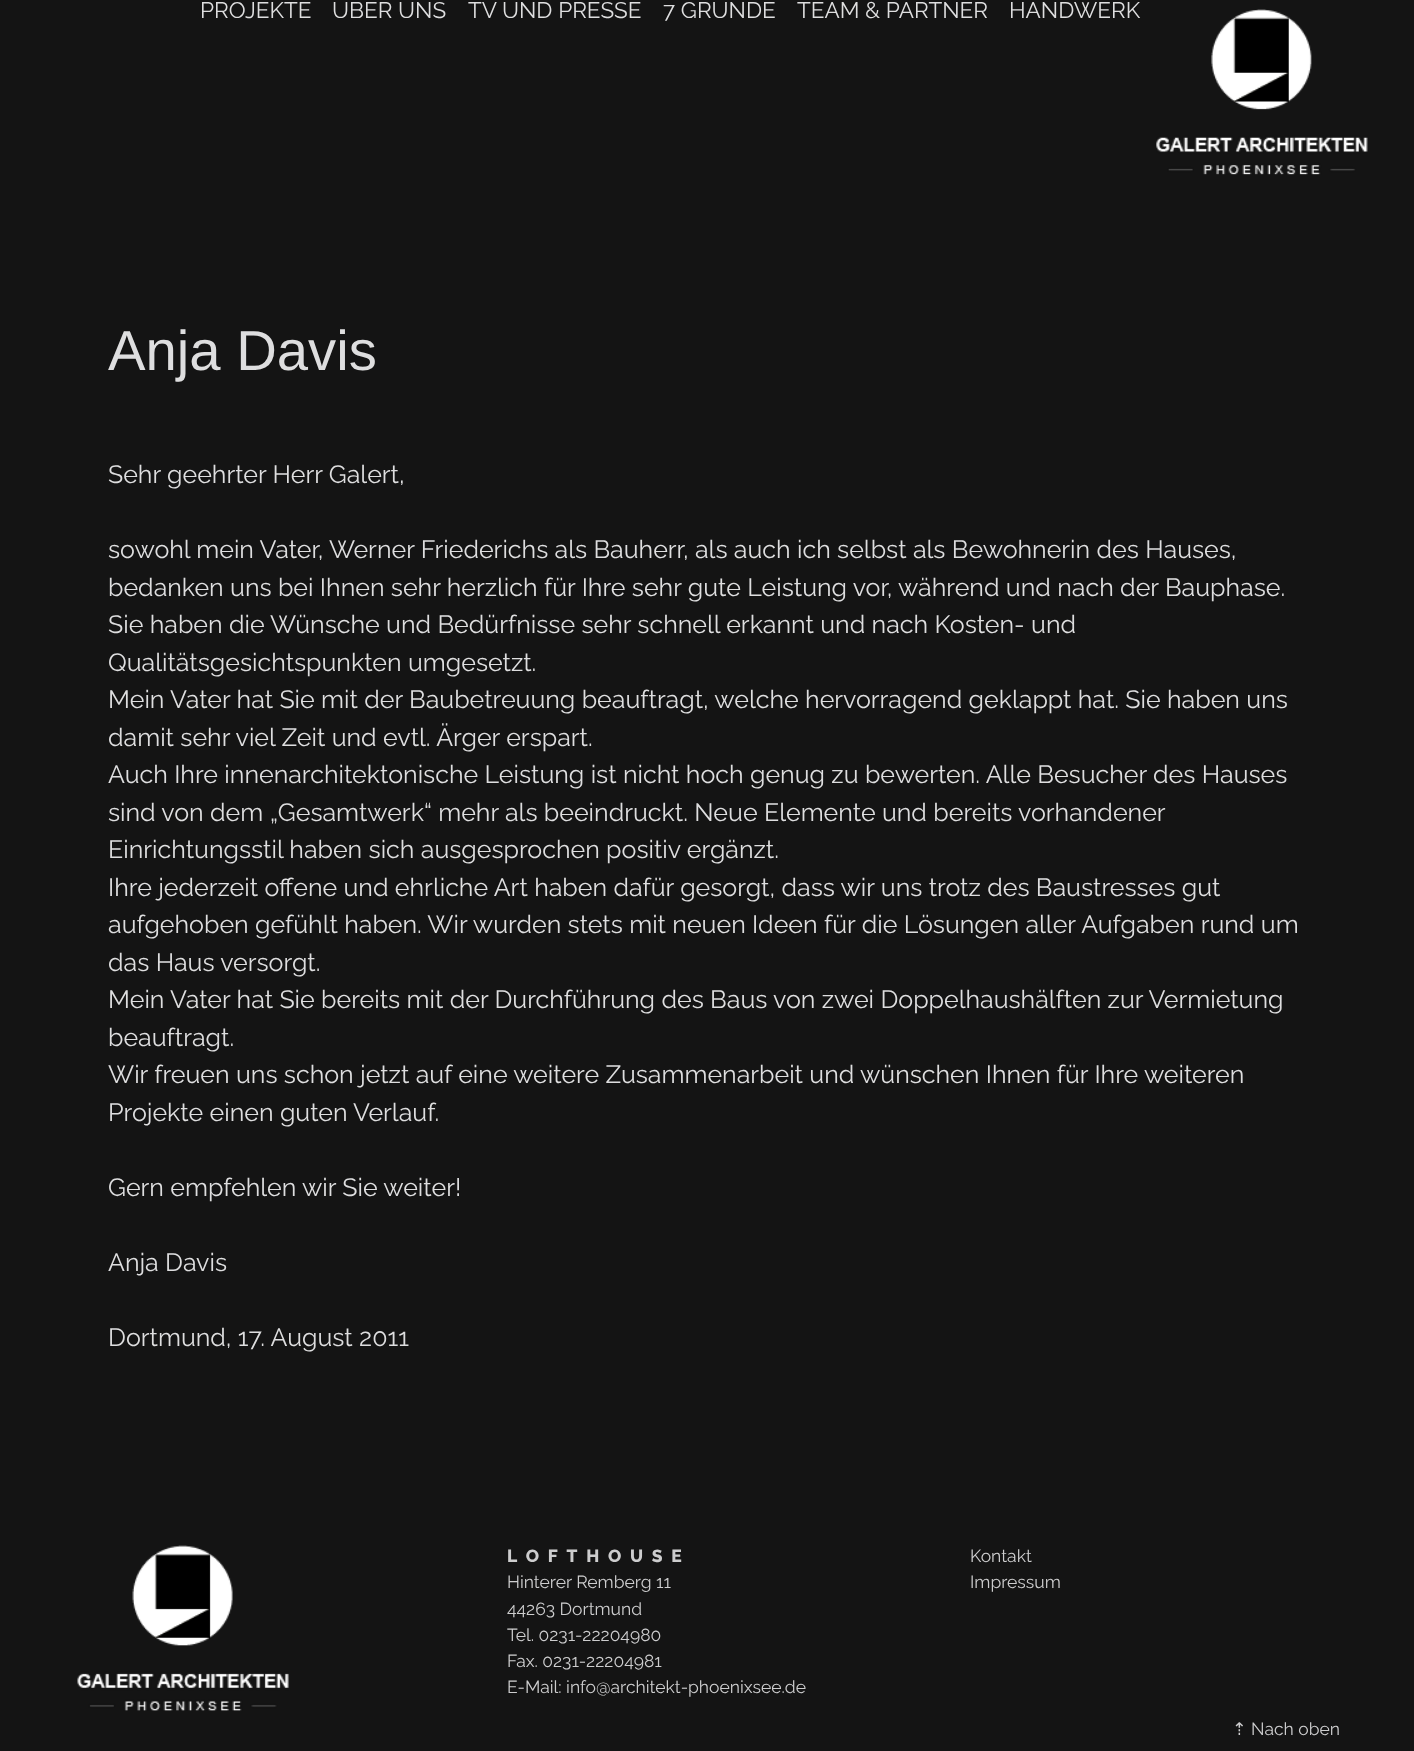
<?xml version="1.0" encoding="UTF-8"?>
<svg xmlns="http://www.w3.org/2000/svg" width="1414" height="1751">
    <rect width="100%" height="100%" fill="#141414"/>
    <text x="200" y="18" font-family="Raleway" font-size="22.5" fill="#DEDEDF">PROJEKTE</text>
    <text x="332" y="18" font-family="Raleway" font-size="22.5" fill="#DEDEDF">ÜBER UNS</text>
    <text x="468" y="18" font-family="Raleway" font-size="22.5" fill="#DEDEDF">TV UND PRESSE</text>
    <text x="663" y="18" font-family="Raleway" font-size="22.5" fill="#DEDEDF">7 GRÜNDE</text>
    <text x="797" y="18" font-family="Raleway" font-size="22.5" fill="#DEDEDF">TEAM &amp; PARTNER</text>
    <text x="1009" y="18" font-family="Raleway" font-size="22.5" fill="#DEDEDF">HANDWERK</text>
    <image x="1156" y="9" width="212" height="166" href="img_01.png"/>
    <text x="108" y="370" font-family="Liberation Sans" font-size="56.25" fill="#DEDEDF">Anja Davis</text>
    <text x="108" y="483" font-family="Raleway" font-size="25" fill="#DEDEDF">Sehr geehrter Herr Galert,</text>
    <text font-family="Raleway" font-size="25" fill="#DEDEDF">
        <tspan x="108" y="558">sowohl mein Vater, Werner Friederichs als Bauherr, als auch ich selbst als Bewohnerin des Hauses,</tspan>
        <tspan x="108" y="596">bedanken uns bei Ihnen sehr herzlich für Ihre sehr gute Leistung vor, während und nach der Bauphase.</tspan>
        <tspan x="108" y="633">Sie haben die Wünsche und Bedürfnisse sehr schnell erkannt und nach Kosten- und</tspan>
        <tspan x="108" y="671">Qualitätsgesichtspunkten umgesetzt.</tspan>
        <tspan x="108" y="708">Mein Vater hat Sie mit der Baubetreuung beauftragt, welche hervorragend geklappt hat. Sie haben uns</tspan>
        <tspan x="108" y="746">damit sehr viel Zeit und evtl. Ärger erspart.</tspan>
        <tspan x="108" y="783">Auch Ihre innenarchitektonische Leistung ist nicht hoch genug zu bewerten. Alle Besucher des Hauses</tspan>
        <tspan x="108" y="821">sind von dem „Gesamtwerk“ mehr als beeindruckt. Neue Elemente und bereits vorhandener</tspan>
        <tspan x="108" y="858">Einrichtungsstil haben sich ausgesprochen positiv ergänzt.</tspan>
        <tspan x="108" y="896">Ihre jederzeit offene und ehrliche Art haben dafür gesorgt, dass wir uns trotz des Baustresses gut</tspan>
        <tspan x="108" y="933">aufgehoben gefühlt haben. Wir wurden stets mit neuen Ideen für die Lösungen aller Aufgaben rund um</tspan>
        <tspan x="108" y="971">das Haus versorgt.</tspan>
        <tspan x="108" y="1008">Mein Vater hat Sie bereits mit der Durchführung des Baus von zwei Doppelhaushälften zur Vermietung</tspan>
        <tspan x="108" y="1046">beauftragt.</tspan>
        <tspan x="108" y="1083">Wir freuen uns schon jetzt auf eine weitere Zusammenarbeit und wünschen Ihnen für Ihre weiteren</tspan>
        <tspan x="108" y="1121">Projekte einen guten Verlauf.</tspan>
    </text>
    <text x="108" y="1196" font-family="Raleway" font-size="25" fill="#DEDEDF">Gern empfehlen wir Sie weiter!</text>
    <text x="108" y="1271" font-family="Raleway" font-size="25" fill="#DEDEDF">Anja Davis</text>
    <text x="108" y="1346" font-family="Raleway" font-size="25" fill="#DEDEDF">Dortmund, 17. August 2011</text>
    <image x="77" y="1545" width="212" height="166" href="img_02.png"/>
    <text x="507" y="1562" font-family="Raleway" font-size="17.5" font-weight="800" letter-spacing="8.75" fill="#CDCDCE">LOFTHOUSE</text>
    <text font-family="Raleway" font-size="17.5" fill="#CDCDCE">
        <tspan x="507" y="1588">Hinterer Remberg 11</tspan>
        <tspan x="507" y="1615">44263 Dortmund</tspan>
        <tspan x="507" y="1641">Tel. 0231-22204980</tspan>
        <tspan x="507" y="1667">Fax. 0231-22204981</tspan>
        <tspan x="507" y="1693">E-Mail: info@architekt-phoenixsee.de</tspan>
    </text>
    <text font-family="Raleway" font-size="17.5" fill="#CDCDCE">
        <tspan x="970" y="1562">Kontakt</tspan>
        <tspan x="970" y="1588">Impressum</tspan>
    </text>
    <text x="1232" y="1735" font-family="DejaVu Sans" font-size="17.5" fill="#CDCDCE">⇡</text>
    <text x="1251" y="1735" font-family="Raleway" font-size="17.5" fill="#CDCDCE">Nach oben</text>
</svg>
